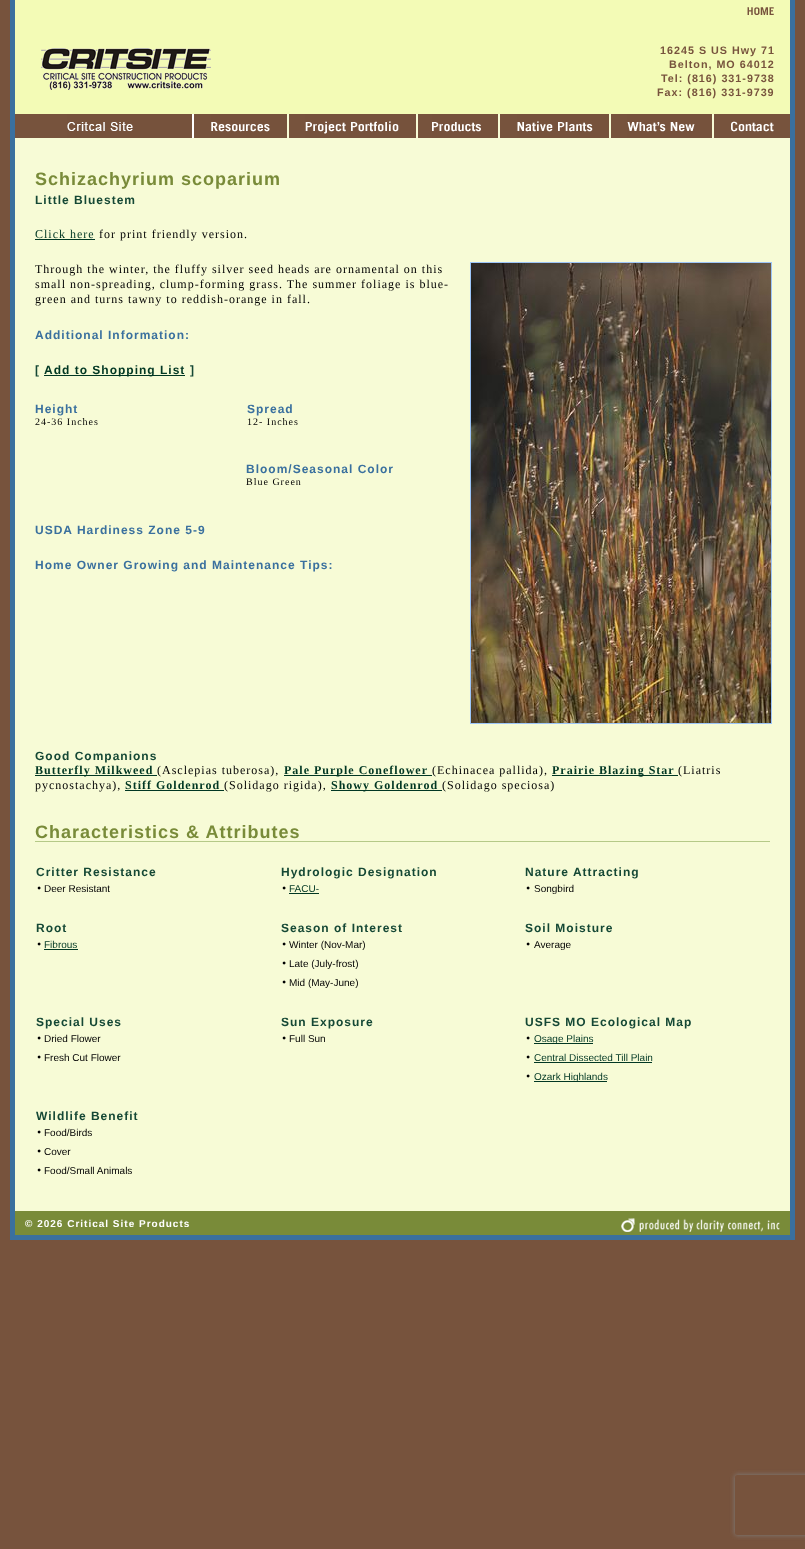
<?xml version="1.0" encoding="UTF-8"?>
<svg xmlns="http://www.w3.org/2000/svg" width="805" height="1549">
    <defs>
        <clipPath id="clip1"><path d="M 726 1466 H 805 V 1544 H 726 Z M 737 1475 H 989 C 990 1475 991 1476 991 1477 V 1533 C 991 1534 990 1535 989 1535 H 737 C 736 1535 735 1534 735 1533 V 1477 C 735 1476 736 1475 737 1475 Z" clip-rule="evenodd"/></clipPath>
        <filter id="blur1" x="-50%" y="-200%" width="200%" height="500%"><feGaussianBlur stdDeviation="2.5"/></filter>
    </defs>
    <rect width="100%" height="100%" fill="#77533D"/>
    <rect x="15" y="138" width="775" height="1073" fill="#F7FBD6"/>
    <rect x="790" y="0" width="5" height="1240" fill="#3A709E"/>
    <rect x="10" y="1235" width="785" height="5" fill="#3A709E"/>
    <rect x="10" y="0" width="5" height="1240" fill="#3A709E"/>
    <rect x="15" y="0" width="775" height="114" fill="#F3FBB6"/>
    <image x="747" y="7" width="27" height="8" href="img_01.png"/>
    <image x="41" y="48" width="170" height="42" href="img_02.png"/>
    <text x="660" y="54" font-family="Liberation Sans" font-size="10.75" font-weight="700" letter-spacing="1" fill="#77533D">16245 S US Hwy 71</text>
    <text x="669" y="68" font-family="Liberation Sans" font-size="10.75" font-weight="700" letter-spacing="1" fill="#77533D">Belton, MO 64012</text>
    <text x="661" y="82" font-family="Liberation Sans" font-size="10.75" font-weight="700" letter-spacing="1" fill="#77533D">Tel: (816) 331-9738</text>
    <text x="657" y="96" font-family="Liberation Sans" font-size="10.75" font-weight="700" letter-spacing="1" fill="#77533D">Fax: (816) 331-9739</text>
    <image x="67" y="114" width="127" height="24" href="img_03.png"/>
    <image x="211" y="114" width="78" height="24" href="img_04.png"/>
    <image x="305" y="114" width="113" height="24" href="img_05.png"/>
    <image x="432" y="114" width="68" height="24" href="img_06.png"/>
    <image x="517" y="114" width="94" height="24" href="img_07.png"/>
    <image x="627" y="114" width="87" height="24" href="img_08.png"/>
    <image x="731" y="121" width="43" height="11" href="img_09.png"/>
    <text x="35" y="185" font-family="Liberation Sans" font-size="18" font-weight="700" letter-spacing="1" fill="#798B39">Schizachyrium scoparium</text>
    <text x="35" y="204" font-family="Liberation Sans" font-size="12" font-weight="700" letter-spacing="1" fill="#154835">Little Bluestem</text>
    <text x="35" y="238" font-family="Liberation Serif" font-size="12" letter-spacing="1" fill="#013723">Click here</text>
    <rect x="35" y="239" width="60" height="1" fill="#013723"/>
    <text x="99" y="238" font-family="Liberation Serif" font-size="12" letter-spacing="1" fill="#000000">for print friendly version.</text>
    <text font-family="Liberation Serif" font-size="12" letter-spacing="1" fill="#000000">
        <tspan x="35" y="273">Through the winter, the fluffy silver seed heads are ornamental on this</tspan>
        <tspan x="35" y="288">small non-spreading, clump-forming grass. The summer foliage is blue-</tspan>
        <tspan x="35" y="303">green and turns tawny to reddish-orange in fall.</tspan>
    </text>
    <rect x="470.5" y="262.5" width="301" height="461" fill="none" stroke="#9CC5F8"/>
    <image x="471" y="263" width="300" height="460" href="img_10.png"/>
    <text x="35" y="339" font-family="Liberation Sans" font-size="12" font-weight="700" letter-spacing="1" fill="#3A709E">Additional Information:</text>
    <text x="35" y="374" font-family="Liberation Sans" font-size="12" font-weight="700" letter-spacing="1" fill="#154835">[</text>
    <rect x="44" y="375" width="141" height="1" fill="#013723"/>
    <text x="44" y="374" font-family="Liberation Sans" font-size="12" font-weight="700" letter-spacing="1" fill="#013723">Add to Shopping List</text>
    <text x="190" y="374" font-family="Liberation Sans" font-size="12" font-weight="700" letter-spacing="1" fill="#154835">]</text>
    <text x="35" y="413" font-family="Liberation Sans" font-size="12" font-weight="700" letter-spacing="1" fill="#3A709E">Height</text>
    <text x="35" y="425" font-family="Liberation Serif" font-size="10" letter-spacing="1" fill="#000000">24-36 Inches</text>
    <text x="247" y="413" font-family="Liberation Sans" font-size="12" font-weight="700" letter-spacing="1" fill="#3A709E">Spread</text>
    <text x="247" y="425" font-family="Liberation Serif" font-size="10" letter-spacing="1" fill="#000000">12- Inches</text>
    <text x="246" y="473" font-family="Liberation Sans" font-size="12" font-weight="700" letter-spacing="1" fill="#3A709E">Bloom/Seasonal Color</text>
    <text x="246" y="485" font-family="Liberation Serif" font-size="10" letter-spacing="1" fill="#000000">Blue Green</text>
    <text x="35" y="534" font-family="Liberation Sans" font-size="12" font-weight="700" letter-spacing="1" fill="#3A709E">USDA Hardiness Zone 5-9</text>
    <text x="35" y="569" font-family="Liberation Sans" font-size="12" font-weight="700" letter-spacing="1" fill="#3A709E">Home Owner Growing and Maintenance Tips:</text>
    <text x="35" y="760" font-family="Liberation Sans" font-size="12" font-weight="700" letter-spacing="1" fill="#154835">Good Companions</text>
    <rect x="35" y="775" width="122" height="1" fill="#013723"/>
    <text x="35" y="774" font-family="Liberation Serif" font-size="12" font-weight="700" letter-spacing="1" fill="#013723">Butterfly Milkweed</text>
    <text x="157" y="774" font-family="Liberation Serif" font-size="12" letter-spacing="1" fill="#000000">(Asclepias tuberosa),</text>
    <rect x="284" y="775" width="148" height="1" fill="#013723"/>
    <text x="284" y="774" font-family="Liberation Serif" font-size="12" font-weight="700" letter-spacing="1" fill="#013723">Pale Purple Coneflower</text>
    <text x="432" y="774" font-family="Liberation Serif" font-size="12" letter-spacing="1" fill="#000000">(Echinacea pallida),</text>
    <rect x="552" y="775" width="126" height="1" fill="#013723"/>
    <text x="552" y="774" font-family="Liberation Serif" font-size="12" font-weight="700" letter-spacing="1" fill="#013723">Prairie Blazing Star</text>
    <text x="678" y="774" font-family="Liberation Serif" font-size="12" letter-spacing="1" fill="#000000">(Liatris</text>
    <text x="35" y="789" font-family="Liberation Serif" font-size="12" letter-spacing="1" fill="#000000">pycnostachya),</text>
    <text x="125" y="789" font-family="Liberation Serif" font-size="12" font-weight="700" letter-spacing="1" fill="#013723">Stiff Goldenrod</text>
    <rect x="125" y="790" width="99" height="1" fill="#013723"/>
    <text x="224" y="789" font-family="Liberation Serif" font-size="12" letter-spacing="1" fill="#000000">(Solidago rigida),</text>
    <rect x="331" y="790" width="111" height="1" fill="#013723"/>
    <text x="331" y="789" font-family="Liberation Serif" font-size="12" font-weight="700" letter-spacing="1" fill="#013723">Showy Goldenrod</text>
    <text x="442" y="789" font-family="Liberation Serif" font-size="12" letter-spacing="1" fill="#000000">(Solidago speciosa)</text>
    <text x="35" y="838" font-family="Liberation Sans" font-size="18" font-weight="700" letter-spacing="1" fill="#798B39">Characteristics &amp; Attributes</text>
    <rect x="35" y="841" width="735" height="1" fill="#B5C988"/>
    <text x="36" y="876" font-family="Liberation Sans" font-size="12" font-weight="700" letter-spacing="1" fill="#154835">Critter Resistance</text>
    <text x="37" y="892" font-family="Liberation Serif" font-size="12" letter-spacing="1" fill="#000000">•</text>
    <text x="44" y="892" font-family="Liberation Sans" font-size="10" fill="#000000">Deer Resistant</text>
    <text x="281" y="876" font-family="Liberation Sans" font-size="12" font-weight="700" letter-spacing="1" fill="#154835">Hydrologic Designation</text>
    <text x="282" y="892" font-family="Liberation Serif" font-size="12" letter-spacing="1" fill="#000000">•</text>
    <text x="289" y="892" font-family="Liberation Sans" font-size="10" fill="#013723">FACU-</text>
    <rect x="289" y="893" width="30" height="1" fill="#013723"/>
    <text x="525" y="876" font-family="Liberation Sans" font-size="12" font-weight="700" letter-spacing="1" fill="#154835">Nature Attracting</text>
    <text x="526" y="892" font-family="Liberation Serif" font-size="12" letter-spacing="1" fill="#000000">•</text>
    <text x="534" y="892" font-family="Liberation Sans" font-size="10" fill="#000000">Songbird</text>
    <text x="36" y="932" font-family="Liberation Sans" font-size="12" font-weight="700" letter-spacing="1" fill="#154835">Root</text>
    <text x="37" y="948" font-family="Liberation Serif" font-size="12" letter-spacing="1" fill="#000000">•</text>
    <text x="44" y="948" font-family="Liberation Sans" font-size="10" fill="#013723">Fibrous</text>
    <rect x="44" y="949" width="34" height="1" fill="#013723"/>
    <text x="281" y="932" font-family="Liberation Sans" font-size="12" font-weight="700" letter-spacing="1" fill="#154835">Season of Interest</text>
    <text x="282" y="948" font-family="Liberation Serif" font-size="12" letter-spacing="1" fill="#000000">•</text>
    <text x="289" y="948" font-family="Liberation Sans" font-size="10" fill="#000000">Winter (Nov-Mar)</text>
    <text x="282" y="967" font-family="Liberation Serif" font-size="12" letter-spacing="1" fill="#000000">•</text>
    <text x="289" y="967" font-family="Liberation Sans" font-size="10" fill="#000000">Late (July-frost)</text>
    <text x="282" y="986" font-family="Liberation Serif" font-size="12" letter-spacing="1" fill="#000000">•</text>
    <text x="289" y="986" font-family="Liberation Sans" font-size="10" fill="#000000">Mid (May-June)</text>
    <text x="525" y="932" font-family="Liberation Sans" font-size="12" font-weight="700" letter-spacing="1" fill="#154835">Soil Moisture</text>
    <text x="526" y="948" font-family="Liberation Serif" font-size="12" letter-spacing="1" fill="#000000">•</text>
    <text x="534" y="948" font-family="Liberation Sans" font-size="10" fill="#000000">Average</text>
    <text x="36" y="1026" font-family="Liberation Sans" font-size="12" font-weight="700" letter-spacing="1" fill="#154835">Special Uses</text>
    <text x="37" y="1042" font-family="Liberation Serif" font-size="12" letter-spacing="1" fill="#000000">•</text>
    <text x="44" y="1042" font-family="Liberation Sans" font-size="10" fill="#000000">Dried Flower</text>
    <text x="37" y="1061" font-family="Liberation Serif" font-size="12" letter-spacing="1" fill="#000000">•</text>
    <text x="44" y="1061" font-family="Liberation Sans" font-size="10" fill="#000000">Fresh Cut Flower</text>
    <text x="281" y="1026" font-family="Liberation Sans" font-size="12" font-weight="700" letter-spacing="1" fill="#154835">Sun Exposure</text>
    <text x="282" y="1042" font-family="Liberation Serif" font-size="12" letter-spacing="1" fill="#000000">•</text>
    <text x="289" y="1042" font-family="Liberation Sans" font-size="10" fill="#000000">Full Sun</text>
    <text x="525" y="1026" font-family="Liberation Sans" font-size="12" font-weight="700" letter-spacing="1" fill="#154835">USFS MO Ecological Map</text>
    <text x="526" y="1042" font-family="Liberation Serif" font-size="12" letter-spacing="1" fill="#000000">•</text>
    <rect x="534" y="1043" width="59" height="1" fill="#013723"/>
    <text x="534" y="1042" font-family="Liberation Sans" font-size="10" fill="#013723">Osage Plains</text>
    <text x="526" y="1061" font-family="Liberation Serif" font-size="12" letter-spacing="1" fill="#000000">•</text>
    <text x="534" y="1061" font-family="Liberation Sans" font-size="10" fill="#013723">Central Dissected Till Plain</text>
    <rect x="534" y="1062" width="118" height="1" fill="#013723"/>
    <text x="526" y="1080" font-family="Liberation Serif" font-size="12" letter-spacing="1" fill="#000000">•</text>
    <rect x="534" y="1081" width="73" height="1" fill="#013723"/>
    <text x="534" y="1080" font-family="Liberation Sans" font-size="10" fill="#013723">Ozark Highlands</text>
    <text x="36" y="1120" font-family="Liberation Sans" font-size="12" font-weight="700" letter-spacing="1" fill="#154835">Wildlife Benefit</text>
    <text x="37" y="1136" font-family="Liberation Serif" font-size="12" letter-spacing="1" fill="#000000">•</text>
    <text x="44" y="1136" font-family="Liberation Sans" font-size="10" fill="#000000">Food/Birds</text>
    <text x="37" y="1155" font-family="Liberation Serif" font-size="12" letter-spacing="1" fill="#000000">•</text>
    <text x="44" y="1155" font-family="Liberation Sans" font-size="10" fill="#000000">Cover</text>
    <text x="37" y="1174" font-family="Liberation Serif" font-size="12" letter-spacing="1" fill="#000000">•</text>
    <text x="44" y="1174" font-family="Liberation Sans" font-size="10" fill="#000000">Food/Small Animals</text>
    <rect x="15" y="1211" width="775" height="24" fill="#798B39"/>
    <text x="25" y="1227" font-family="Liberation Sans" font-size="10" font-weight="700" letter-spacing="1" fill="#FFFFFF">© 2026 Critical Site Products</text>
    <image x="621" y="1218" width="159" height="14" href="img_11.png"/>
    <g clip-path="url(#clip1)">
        <rect x="735" y="1475" width="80" height="60" rx="2" fill="#808080" filter="url(#blur1)"/>
    </g>
</svg>
